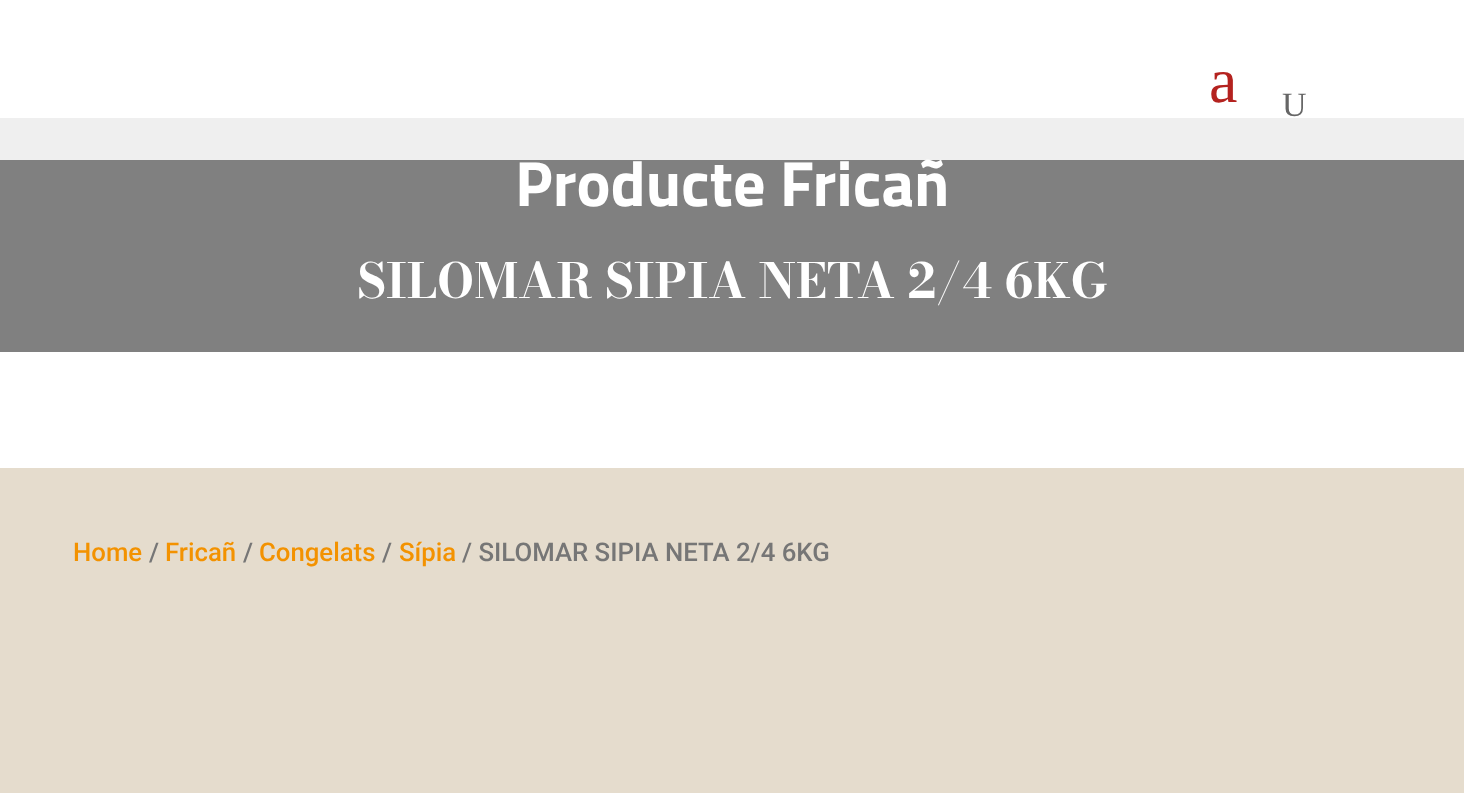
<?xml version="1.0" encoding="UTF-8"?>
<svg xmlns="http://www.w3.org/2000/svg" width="1464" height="793">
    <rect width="100%" height="100%" fill="#FFFFFF"/>
    <rect x="0" y="118" width="1464" height="234" fill="#808080"/>
    <text x="515" y="206" font-family="Titillium Web" font-size="64" font-weight="700" fill="#FFFFFF">Producte Fricañ</text>
    <rect x="0" y="118" width="1464" height="42" fill="#FFFFFF" fill-opacity="0.87"/>
    <text x="1209" y="102" font-family="Liberation Serif" font-size="64" fill="#B4221F">a</text>
    <text x="1282" y="116" font-family="Liberation Serif" font-size="34" fill="#666666">U</text>
    <text x="357" y="298" font-family="Bodoni Moda" font-size="48" font-weight="700" fill="#FFFFFF">SILOMAR SIPIA NETA 2/4 6KG</text>
    <rect x="0" y="468" width="1464" height="325" fill="#E5DCCD"/>
    <text x="73" y="561" font-family="Roboto" font-size="25.75" font-weight="500" fill="#F39200">Home</text>
    <text x="149" y="561" font-family="Roboto" font-size="25.75" font-weight="500" fill="#767676">/</text>
    <text x="165" y="561" font-family="Roboto" font-size="25.75" font-weight="500" fill="#F39200">Fricañ</text>
    <text x="243" y="561" font-family="Roboto" font-size="25.75" font-weight="500" fill="#767676">/</text>
    <text x="259" y="561" font-family="Roboto" font-size="25.75" font-weight="500" fill="#F39200">Congelats</text>
    <text x="382" y="561" font-family="Roboto" font-size="25.75" font-weight="500" fill="#767676">/</text>
    <text x="399" y="561" font-family="Roboto" font-size="25.75" font-weight="500" fill="#F39200">Sípia</text>
    <text x="462" y="561" font-family="Roboto" font-size="25.75" font-weight="500" fill="#767676">/ SILOMAR SIPIA NETA 2/4 6KG</text>
</svg>
